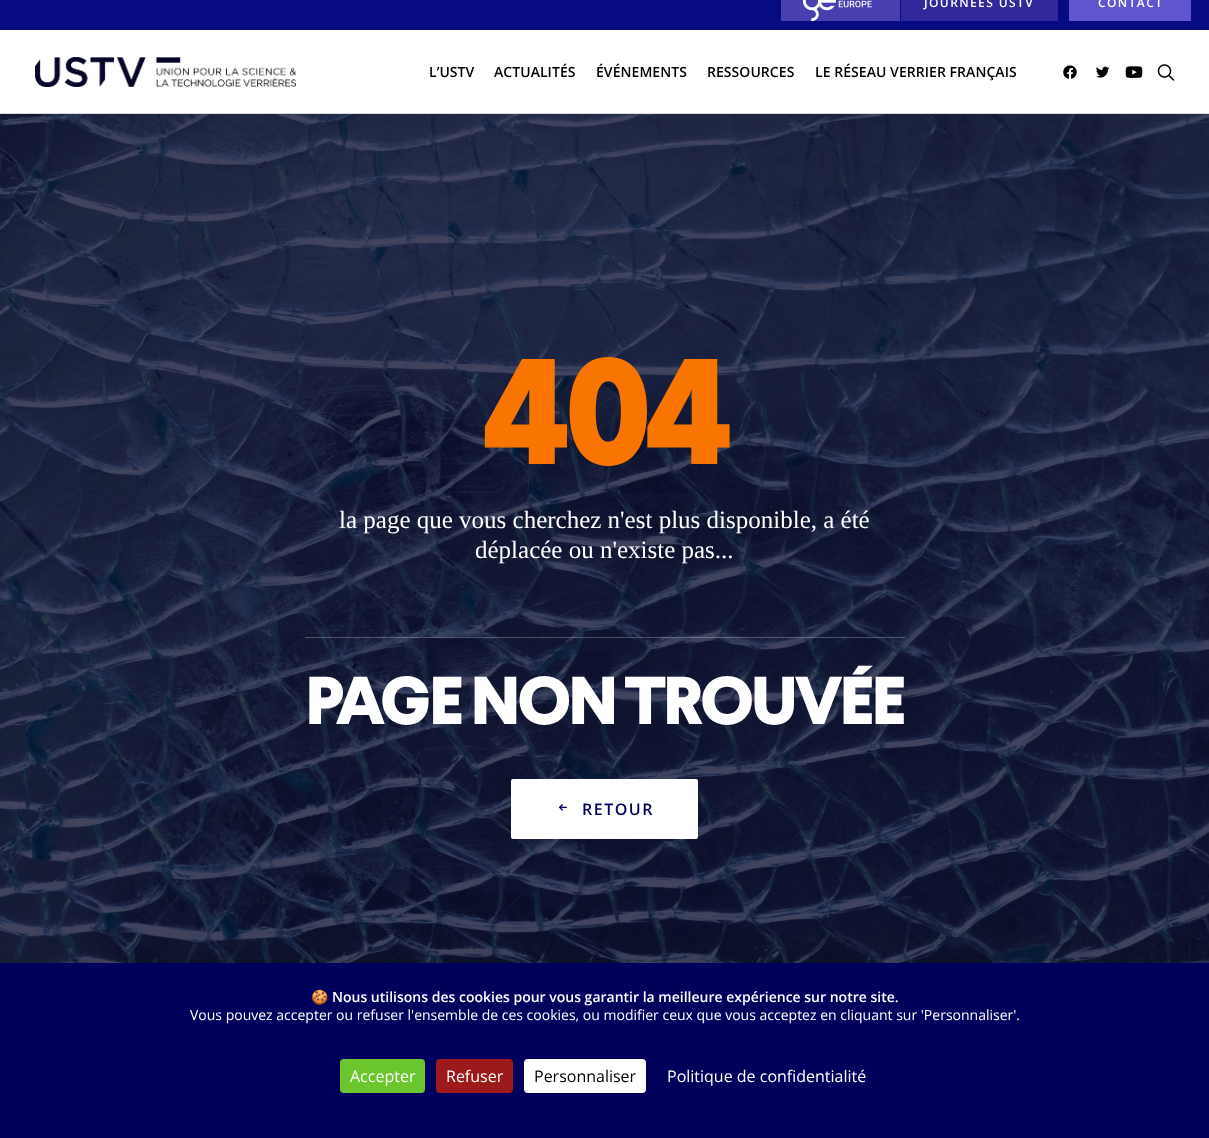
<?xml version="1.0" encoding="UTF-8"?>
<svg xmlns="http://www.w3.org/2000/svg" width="1209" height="1138">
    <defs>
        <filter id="blur1" x="-50%" y="-200%" width="200%" height="500%"><feGaussianBlur stdDeviation="30"/></filter>
    </defs>
    <rect width="100%" height="100%" fill="#FFFFFF"/>
    <rect x="0" y="0" width="1209" height="30" fill="#060B81"/>
    <rect x="781" y="0" width="119" height="21" fill="#483FB0"/>
    <image x="802" y="0" width="70" height="22" href="img_01.png"/>
    <rect x="901" y="0" width="157" height="21" fill="#31289B"/>
    <text x="924" y="7" font-family="Open Sans" font-size="12" font-weight="600" letter-spacing="1.4" fill="#FFFFFF">JOURNÉES USTV</text>
    <rect x="1069" y="0" width="122" height="21" fill="#5F55CE"/>
    <text x="1098" y="7" font-family="Open Sans" font-size="12" font-weight="600" letter-spacing="1.4" fill="#FFFFFF">CONTACT</text>
    <image x="35" y="57" width="261" height="30" href="img_02.png"/>
    <text x="429" y="77" font-family="Open Sans" font-size="14" font-weight="600" letter-spacing="0.05" fill="#000000">L’USTV</text>
    <text x="494" y="77" font-family="Open Sans" font-size="14" font-weight="600" letter-spacing="0.05" fill="#000000">ACTUALITÉS</text>
    <text x="596" y="77" font-family="Open Sans" font-size="14" font-weight="600" letter-spacing="0.05" fill="#000000">ÉVÉNEMENTS</text>
    <text x="707" y="77" font-family="Open Sans" font-size="14" font-weight="600" letter-spacing="0.05" fill="#000000">RESSOURCES</text>
    <text x="815" y="77" font-family="Open Sans" font-size="14" font-weight="600" letter-spacing="0.05" fill="#000000">LE RÉSEAU VERRIER FRANÇAIS</text>
    <image x="1063" y="65" width="14" height="14" href="img_03.png"/>
    <image x="1096" y="66" width="14" height="12" href="img_04.png"/>
    <image x="1125" y="66" width="18" height="12" href="img_05.png"/>
    <image x="1157" y="64" width="18" height="17" href="img_06.png"/>
    <rect x="0" y="113" width="1209" height="1" fill="#D9D9D9"/>
    <image x="0" y="114" width="1209" height="849" href="img_07.png"/>
    <text x="482" y="464" font-family="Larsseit" font-size="150" font-weight="800" letter-spacing="-7.5" fill="#F87600">404</text>
    <text x="339" y="528" font-family="Liberation Serif" font-size="25" fill="#FFFFFF">la page que vous cherchez n'est plus disponible, a été</text>
    <text x="475" y="558" font-family="Liberation Serif" font-size="25" fill="#FFFFFF">déplacée ou n'existe pas...</text>
    <rect x="305" y="637" width="600" height="1" fill="#FFFFFF" fill-opacity="0.25"/>
    <text x="305" y="724" font-family="Larsseit" font-size="67.5" font-weight="800" letter-spacing="-3.4" fill="#FFFFFF">PAGE NON TROUVÉE</text>
    <rect x="512" y="780" width="185" height="58" rx="1" fill="#FFFFFF" stroke="#FFFFFF" stroke-width="2"/>
    <image x="558" y="804" width="9" height="7" href="img_08.png"/>
    <text x="582" y="815" font-family="Open Sans" font-size="16" font-weight="600" letter-spacing="1.5" fill="#00005C">RETOUR</text>
    <rect x="0" y="983" width="1209" height="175" fill="#000000" fill-opacity="0.25" filter="url(#blur1)"/>
    <rect x="0" y="963" width="1209" height="175" fill="#00005C"/>
    <text x="311" y="1002" font-family="Noto Color Emoji" font-size="14" fill="#FFFFFF">🍪</text>
    <text x="332" y="1002" font-family="Open Sans" font-size="14" font-weight="600" fill="#FFFFFF">Nous utilisons des cookies pour vous garantir la meilleure expérience sur notre site.</text>
    <text x="190" y="1020" font-family="Open Sans" font-size="14" fill="#FFFFFF">Vous pouvez accepter ou refuser l'ensemble de ces cookies, ou modifier ceux que vous acceptez en cliquant sur 'Personnaliser'.</text>
    <rect x="340" y="1059" width="85" height="34" rx="4" fill="#6BC62E"/>
    <text x="350" y="1082" font-family="Open Sans" font-size="16" fill="#FFFFFF">Accepter</text>
    <rect x="436" y="1059" width="77" height="34" rx="4" fill="#9C1A1A"/>
    <text x="446" y="1082" font-family="Open Sans" font-size="16" fill="#FFFFFF">Refuser</text>
    <rect x="524" y="1059" width="122" height="34" rx="4" fill="#FFFFFF"/>
    <text x="534" y="1082" font-family="Open Sans" font-size="16" fill="#000000">Personnaliser</text>
    <text x="667" y="1082" font-family="Open Sans" font-size="16" fill="#FFFFFF">Politique de confidentialité</text>
</svg>
